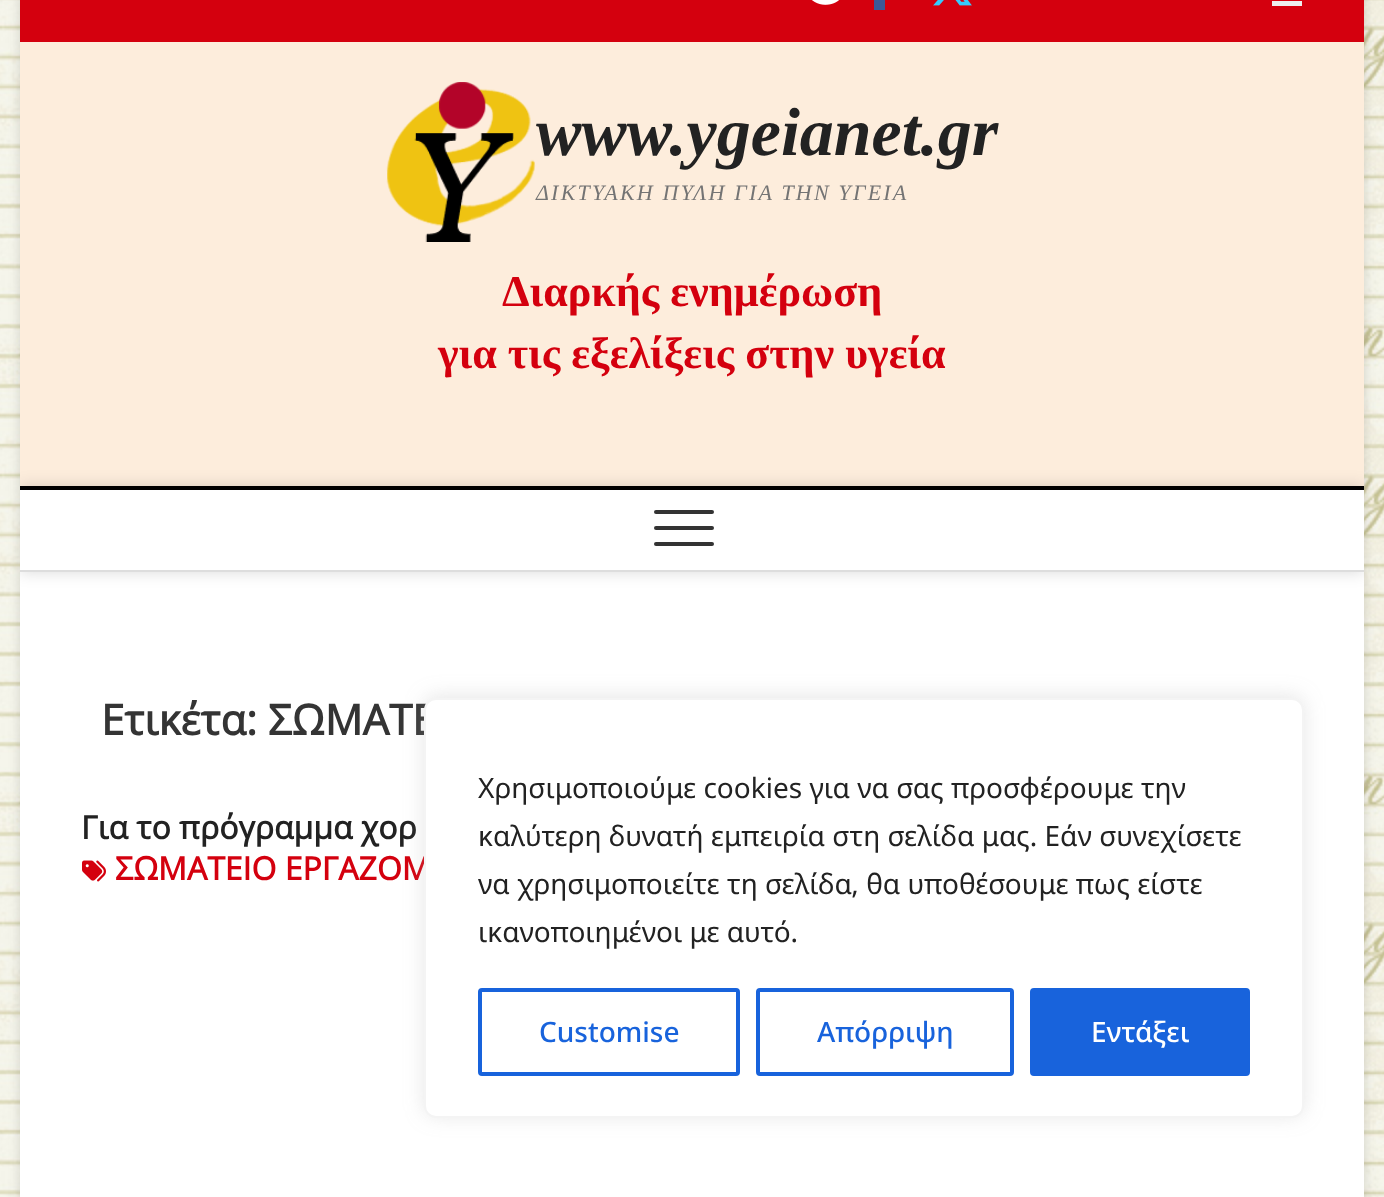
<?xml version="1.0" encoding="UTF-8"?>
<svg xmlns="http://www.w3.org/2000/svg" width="1384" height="1197">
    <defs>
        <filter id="blur1" x="-50%" y="-200%" width="200%" height="500%"><feGaussianBlur stdDeviation="6"/></filter>
        <clipPath id="clip1"><rect x="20" y="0" width="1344" height="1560"/></clipPath>
        <clipPath id="clip2"><path d="M 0 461 H 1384 V 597 H 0 Z M 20 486 H 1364 V 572 H 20 Z" clip-rule="evenodd"/></clipPath>
        <filter id="blur2" x="-50%" y="-200%" width="200%" height="500%"><feGaussianBlur stdDeviation="8"/></filter>
        <filter id="blur3" x="-50%" y="-200%" width="200%" height="500%"><feGaussianBlur stdDeviation="10"/></filter>
    </defs>
    <rect width="100%" height="100%" fill="#FFFFFF"/>
    <image x="0" y="0" width="1384" height="1197" href="img_01.png"/>
    <rect x="20" y="-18" width="1344" height="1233" fill="#000000" fill-opacity="0.15" filter="url(#blur1)"/>
    <rect x="20" y="490" width="1344" height="707" fill="#FFFFFF"/>
    <rect x="20" y="0" width="1344" height="42" fill="#D4000E"/>
    <image x="812" y="0" width="27" height="5" href="img_02.png"/>
    <rect x="874" y="0" width="11" height="10" fill="#3B5998"/>
    <image x="933" y="0" width="39" height="6" href="img_03.png"/>
    <rect x="1272" y="1" width="30" height="5" fill="#EEEEEE"/>
    <rect x="20" y="42" width="1344" height="444" fill="#FDEDDC"/>
    <image x="386" y="82" width="150" height="160" href="img_04.png"/>
    <text x="536" y="155" font-family="Liberation Serif" font-size="68" font-weight="700" font-style="italic" fill="#222222">www.ygeianet.gr</text>
    <text x="536" y="200" font-family="Liberation Serif" font-size="22" font-style="italic" letter-spacing="2.2" fill="#747474">ΔΙΚΤΥΑΚΗ ΠΥΛΗ ΓΙΑ ΤΗΝ ΥΓΕΙΑ</text>
    <text x="502" y="306" font-family="Liberation Serif" font-size="44" font-weight="700" fill="#D4000E">Διαρκής ενημέρωση</text>
    <text x="438" y="368" font-family="Liberation Serif" font-size="44" font-weight="700" fill="#D4000E">για τις εξελίξεις στην υγεία</text>
    <g clip-path="url(#clip1)">
        <g clip-path="url(#clip2)">
            <rect x="20" y="486" width="1344" height="86" fill="#000000" fill-opacity="0.15" filter="url(#blur2)"/>
        </g>
    </g>
    <rect x="20" y="486" width="1344" height="4" fill="#000000"/>
    <rect x="20" y="570" width="1344" height="2" fill="#DDDDDD"/>
    <rect x="654" y="526" width="60" height="4" rx="2" fill="#333333"/>
    <rect x="654" y="510" width="60" height="4" rx="2" fill="#333333"/>
    <rect x="654" y="542" width="60" height="4" rx="2" fill="#333333"/>
    <text x="101" y="735" font-family="Open Sans" font-size="42" font-weight="700" fill="#343434">Ετικέτα: ΣΩΜΑΤΕ</text>
    <text x="81" y="839" font-family="Open Sans" font-size="32" font-weight="700" fill="#222222">Για το πρόγραμμα χορ</text>
    <image x="82" y="860" width="24" height="22" href="img_05.png"/>
    <text x="115" y="880" font-family="Open Sans" font-size="32" font-weight="700" fill="#D4000E">ΣΩΜΑΤΕΙΟ ΕΡΓΑΖΟΜ</text>
    <rect x="424" y="696" width="880" height="420" rx="12" fill="#ACABAB" fill-opacity="0.3" filter="url(#blur3)"/>
    <rect x="425" y="699" width="878" height="418" rx="11" fill="#FFFFFF" stroke="#F4F4F4" stroke-width="2"/>
    <text font-family="Noto Sans" font-size="28" fill="#222222">
        <tspan x="478" y="798">Χρησιμοποιούμε cookies για να σας προσφέρουμε την</tspan>
        <tspan x="478" y="846">καλύτερη δυνατή εμπειρία στη σελίδα μας. Εάν συνεχίσετε</tspan>
        <tspan x="478" y="894">να χρησιμοποιείτε τη σελίδα, θα υποθέσουμε πως είστε</tspan>
        <tspan x="478" y="942">ικανοποιημένοι με αυτό.</tspan>
    </text>
    <rect x="480" y="990" width="258" height="84" rx="2" fill="none" stroke="#1863DC" stroke-width="4"/>
    <text x="539" y="1042" font-family="Noto Sans" font-size="28" font-weight="500" fill="#1863DC">Customise</text>
    <rect x="758" y="990" width="254" height="84" rx="2" fill="none" stroke="#1863DC" stroke-width="4"/>
    <text x="817" y="1042" font-family="Noto Sans" font-size="28" font-weight="500" fill="#1863DC">Απόρριψη</text>
    <rect x="1032" y="990" width="216" height="84" rx="2" fill="#1863DC" stroke="#1863DC" stroke-width="4"/>
    <text x="1091" y="1042" font-family="Noto Sans" font-size="28" font-weight="500" fill="#FFFFFF">Εντάξει</text>
</svg>
